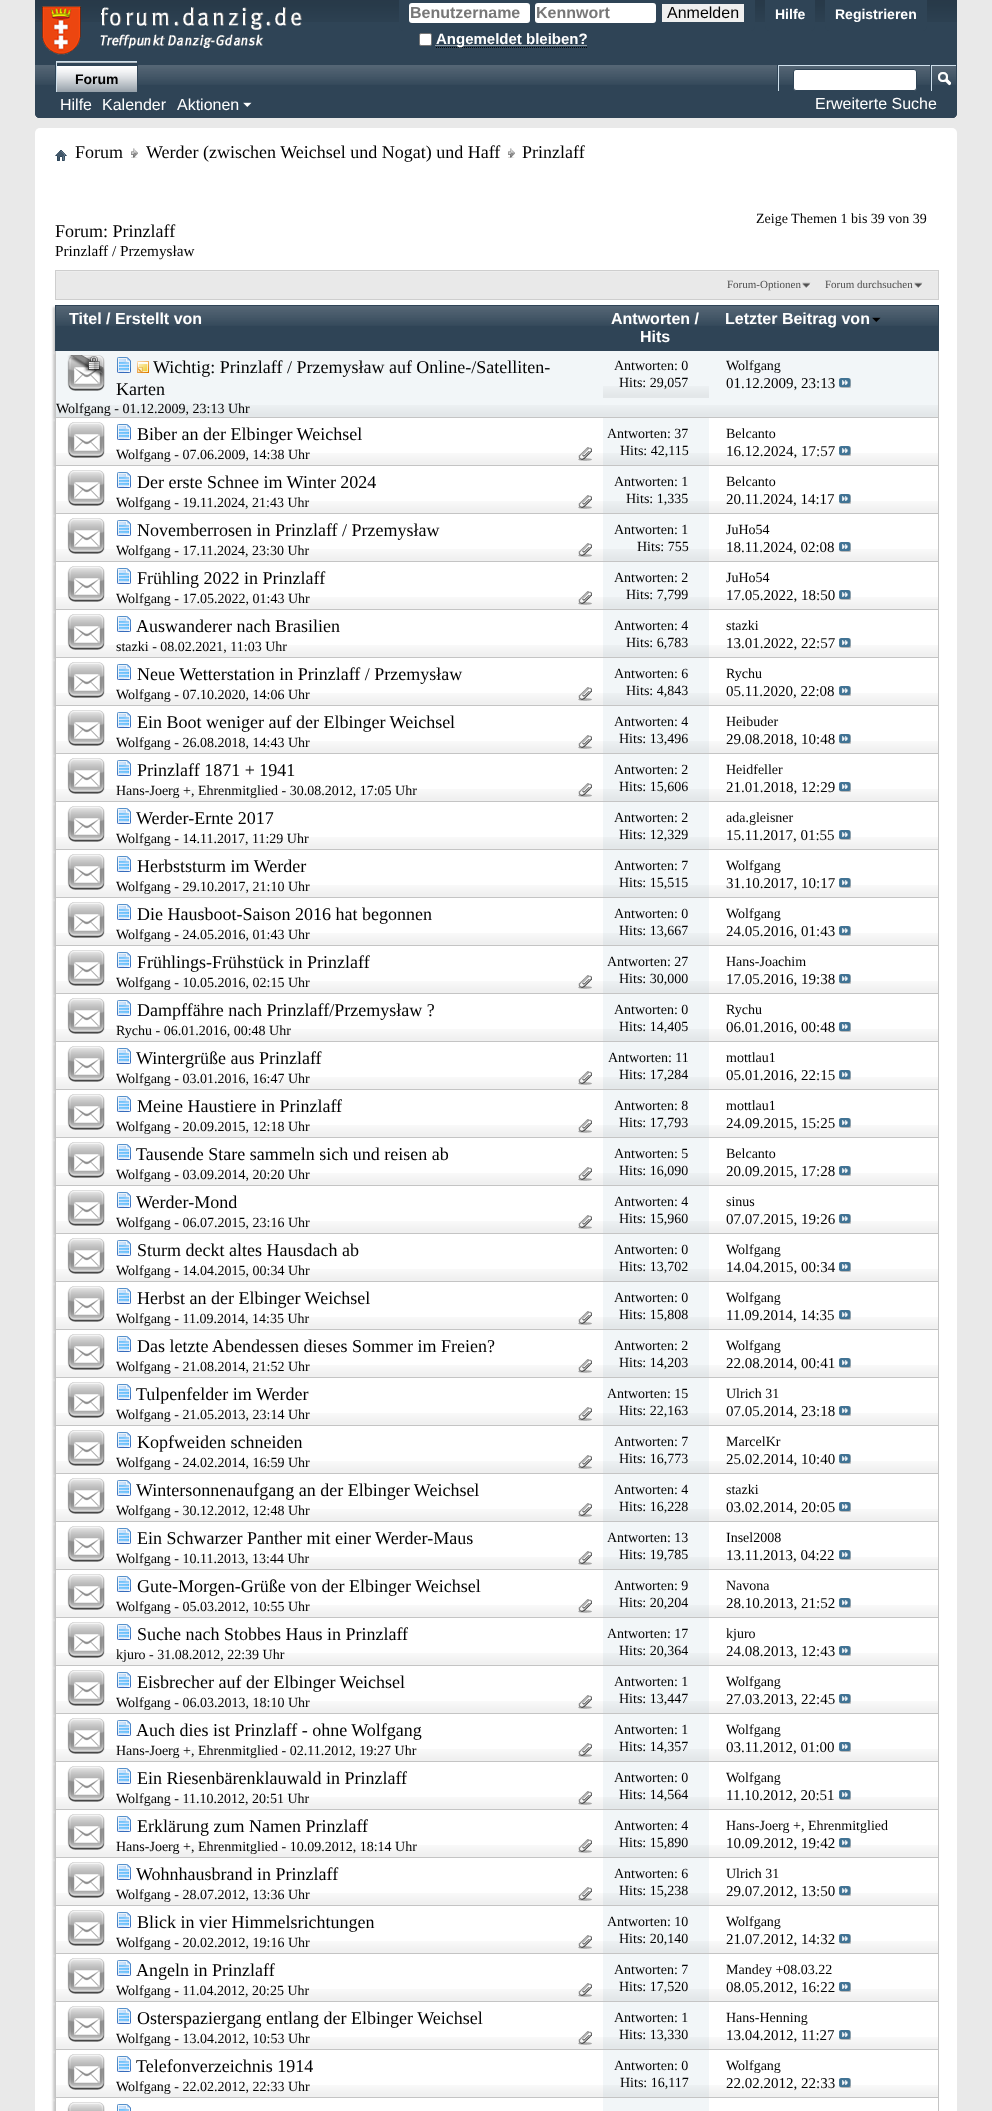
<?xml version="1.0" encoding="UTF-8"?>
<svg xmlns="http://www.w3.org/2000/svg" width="992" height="2111">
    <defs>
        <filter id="blur1" x="-50%" y="-200%" width="200%" height="500%"><feGaussianBlur stdDeviation="1"/></filter>
    </defs>
    <rect width="100%" height="100%" fill="#E9E9E9"/>
    <path d="M 35 0 H 957 V 113 C 957 116 955 118 952 118 H 40 C 37 118 35 116 35 113 Z" fill="#2F4456"/>
    <image x="35" y="0" width="922" height="22" href="img_01.png"/>
    <image x="42" y="6" width="260" height="49" href="img_02.png"/>
    <path d="M 399 0 H 755 V 26 C 755 29 753 31 750 31 H 404 C 401 31 399 29 399 26 Z" fill="#2F4456"/>
    <rect x="409" y="3" width="121" height="20" rx="3" fill="#FFFFFF"/>
    <text x="410" y="18" font-family="Liberation Sans" font-size="16" font-weight="700" fill="#777777">Benutzername</text>
    <rect x="535" y="3" width="121" height="20" rx="3" fill="#FFFFFF"/>
    <text x="536" y="18" font-family="Liberation Sans" font-size="16" font-weight="700" fill="#777777">Kennwort</text>
    <rect x="662" y="4" width="82" height="18" fill="#EFEFEF"/>
    <text x="667" y="18" font-family="Liberation Sans" font-size="16" fill="#000000">Anmelden</text>
    <rect x="419.5" y="33.5" width="12" height="12" rx="1.5" fill="#FFFFFF" stroke="#767676"/>
    <path d="M 436 47.5 H 587" fill="none" stroke="#000000" stroke-dasharray="1 1"/>
    <path d="M 435.5 45.5 H 587" fill="none" stroke="#FFFFFF" stroke-dasharray="1 1"/>
    <text x="436" y="44" font-family="Liberation Sans" font-size="15" font-weight="700" fill="#FFFFFF">Angemeldet bleiben?</text>
    <path d="M 765 0 H 815 V 26 C 815 29 813 31 810 31 H 770 C 767 31 765 29 765 26 Z" fill="#2F4456"/>
    <text x="775" y="19" font-family="Liberation Sans" font-size="14" font-weight="700" fill="#FFFFFF">Hilfe</text>
    <path d="M 825 0 H 927 V 26 C 927 29 925 31 922 31 H 830 C 827 31 825 29 825 26 Z" fill="#2F4456"/>
    <text x="835" y="19" font-family="Liberation Sans" font-size="14" font-weight="700" fill="#FFFFFF">Registrieren</text>
    <path d="M 35 65 H 957 V 113 C 957 116 955 118 952 118 H 40 C 37 118 35 116 35 113 Z" fill="#2F4456"/>
    <image x="35" y="65" width="921" height="20" href="img_03.png"/>
    <rect x="137" y="65" width="1" height="26" fill="#2F4456"/>
    <rect x="55" y="65" width="1" height="26" fill="#2F4456"/>
    <rect x="57" y="65" width="80" height="20" fill="#2F4456"/>
    <image x="57" y="62" width="80" height="30" href="img_04.png"/>
    <rect x="56" y="61" width="81" height="1" fill="#CEDFEB"/>
    <rect x="56" y="61" width="1" height="31" fill="#CEDFEB"/>
    <text x="75" y="84" font-family="Liberation Sans" font-size="14" font-weight="700" fill="#000000">Forum</text>
    <text x="60" y="110" font-family="Liberation Sans" font-size="16" fill="#FFFFFF">Hilfe</text>
    <text x="102" y="110" font-family="Liberation Sans" font-size="16" fill="#FFFFFF">Kalender</text>
    <text x="177" y="110" font-family="Liberation Sans" font-size="16" fill="#FFFFFF">Aktionen</text>
    <image x="243" y="102" width="9" height="5" href="img_05.png"/>
    <rect x="777" y="65" width="1" height="26" fill="#2F4456"/>
    <rect x="778" y="65" width="152" height="1" fill="#CEDFEB"/>
    <rect x="778" y="65" width="1" height="26" fill="#CEDFEB"/>
    <rect x="793.5" y="69.5" width="123" height="21" rx="2.5" fill="#FFFFFF" stroke="#2F4456"/>
    <rect x="930" y="65" width="1" height="26" fill="#2F4456"/>
    <rect x="931" y="65" width="25" height="1" fill="#CEDFEB"/>
    <rect x="931" y="65" width="1" height="26" fill="#CEDFEB"/>
    <image x="938" y="72" width="13" height="14" href="img_06.png"/>
    <text x="815" y="109" font-family="Liberation Sans" font-size="16" fill="#FFFFFF">Erweiterte Suche</text>
    <rect x="35" y="128" width="922" height="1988" rx="5" fill="#FFFFFF"/>
    <image x="55" y="150" width="12" height="11" href="img_07.png"/>
    <image x="131" y="148" width="7" height="10" href="img_08.png"/>
    <text x="75" y="158" font-family="Liberation Serif" font-size="18" fill="#000000">Forum</text>
    <image x="508" y="148" width="7" height="10" href="img_08.png"/>
    <text x="146" y="158" font-family="Liberation Serif" font-size="18" fill="#000000">Werder (zwischen Weichsel und Nogat) und Haff</text>
    <text x="522" y="158" font-family="Liberation Serif" font-size="18" fill="#000000">Prinzlaff</text>
    <text x="756" y="223" font-family="Liberation Serif" font-size="14" fill="#000000">Zeige Themen 1 bis 39 von 39</text>
    <text x="55" y="237" font-family="Liberation Serif" font-size="18" fill="#000000">Forum: Prinzlaff</text>
    <text x="55" y="256" font-family="Liberation Serif" font-size="15.25" fill="#000000">Prinzlaff / Przemysław</text>
    <rect x="56" y="272" width="882" height="27" fill="#E9E9E9"/>
    <rect x="55" y="271" width="884" height="1" fill="#EDEDED"/>
    <rect x="55.5" y="270.5" width="883" height="29" fill="none" stroke="#CECECE"/>
    <image x="802" y="282" width="9" height="7" href="img_09.png"/>
    <text x="727" y="288" font-family="Liberation Serif" font-size="11" fill="#4E4E4E">Forum-Optionen</text>
    <image x="914" y="282" width="9" height="7" href="img_09.png"/>
    <text x="825" y="288" font-family="Liberation Serif" font-size="11" fill="#4E4E4E">Forum durchsuchen</text>
    <rect x="53" y="307" width="884" height="46" fill="#C8C8C8" filter="url(#blur1)"/>
    <rect x="56" y="306" width="882" height="44" fill="#2F4456"/>
    <image x="56" y="306" width="882" height="20" href="img_10.png"/>
    <rect x="55.5" y="305.5" width="883" height="45" fill="none" stroke="#2F4456"/>
    <text x="69" y="324" font-family="Liberation Sans" font-size="16" font-weight="700" fill="#FFFFFF">Titel / Erstellt von</text>
    <text x="611" y="324" font-family="Liberation Sans" font-size="16" font-weight="700" fill="#FFFFFF">Antworten /</text>
    <text x="640" y="342" font-family="Liberation Sans" font-size="16" font-weight="700" fill="#FFFFFF">Hits</text>
    <text x="725" y="324" font-family="Liberation Sans" font-size="16" font-weight="700" fill="#FFFFFF">Letzter Beitrag von</text>
    <image x="872" y="317" width="9" height="5" href="img_11.png"/>
    <rect x="53" y="353" width="882" height="67" fill="#C8C8C8" filter="url(#blur1)"/>
    <rect x="56" y="351" width="882" height="66" fill="#F2F6F8"/>
    <image x="56" y="405" width="882" height="12" href="img_12.png"/>
    <rect x="938" y="351" width="1" height="67" fill="#C4C4C4"/>
    <rect x="55" y="417" width="884" height="1" fill="#C4C4C4"/>
    <rect x="55" y="351" width="1" height="67" fill="#C4C4C4"/>
    <image x="67" y="355" width="38" height="36" href="img_13.png"/>
    <image x="117" y="357" width="14" height="16" href="img_14.png"/>
    <image x="137" y="361" width="12" height="12" href="img_15.png"/>
    <text x="153" y="373" font-family="Liberation Serif" font-size="18" fill="#000000">Wichtig: Prinzlaff / Przemysław auf Online-/Satelliten-</text>
    <text x="116" y="395" font-family="Liberation Serif" font-size="18" fill="#000000">Karten</text>
    <text x="56" y="413" font-family="Liberation Serif" font-size="14" fill="#000000">Wolfgang - 01.12.2009, 23:13 Uhr</text>
    <image x="603" y="386" width="106" height="12" href="img_16.png"/>
    <text x="614" y="370" font-family="Liberation Serif" font-size="14" fill="#000000">Antworten: 0</text>
    <text x="619" y="387" font-family="Liberation Serif" font-size="14" fill="#000000">Hits: 29,057</text>
    <text x="726" y="370" font-family="Liberation Serif" font-size="14" fill="#000000">Wolfgang</text>
    <text x="726" y="388" font-family="Liberation Serif" font-size="15" fill="#000000">01.12.2009, 23:13</text>
    <image x="839" y="378" width="12" height="10" href="img_17.png"/>
    <rect x="53" y="420" width="882" height="48" fill="#C8C8C8" filter="url(#blur1)"/>
    <rect x="56" y="418" width="881" height="47" fill="#FFFFFF"/>
    <image x="56" y="453" width="882" height="12" href="img_18.png"/>
    <rect x="938" y="418" width="1" height="48" fill="#C4C4C4"/>
    <rect x="55" y="465" width="884" height="1" fill="#C4C4C4"/>
    <rect x="55" y="418" width="1" height="48" fill="#C4C4C4"/>
    <image x="67" y="422" width="38" height="36" href="img_19.png"/>
    <image x="117" y="424" width="14" height="16" href="img_20.png"/>
    <text x="137" y="440" font-family="Liberation Serif" font-size="18" fill="#000000">Biber an der Elbinger Weichsel</text>
    <text x="116" y="459" font-family="Liberation Serif" font-size="14" fill="#000000">Wolfgang - 07.06.2009, 14:38 Uhr</text>
    <image x="578" y="447" width="14" height="14" href="img_21.png"/>
    <rect x="603" y="418" width="106" height="47" fill="#F2F6F8"/>
    <image x="603" y="453" width="106" height="12" href="img_16.png"/>
    <text x="607" y="438" font-family="Liberation Serif" font-size="14" fill="#000000">Antworten: 37</text>
    <text x="620" y="455" font-family="Liberation Serif" font-size="14" fill="#000000">Hits: 42,115</text>
    <text x="726" y="438" font-family="Liberation Serif" font-size="14" fill="#000000">Belcanto</text>
    <text x="726" y="456" font-family="Liberation Serif" font-size="15" fill="#000000">16.12.2024, 17:57</text>
    <image x="839" y="446" width="12" height="10" href="img_22.png"/>
    <rect x="53" y="468" width="882" height="48" fill="#C8C8C8" filter="url(#blur1)"/>
    <rect x="56" y="466" width="881" height="47" fill="#FFFFFF"/>
    <image x="56" y="501" width="882" height="12" href="img_18.png"/>
    <rect x="938" y="466" width="1" height="48" fill="#C4C4C4"/>
    <rect x="55" y="513" width="884" height="1" fill="#C4C4C4"/>
    <rect x="55" y="466" width="1" height="48" fill="#C4C4C4"/>
    <image x="67" y="470" width="38" height="36" href="img_19.png"/>
    <image x="117" y="472" width="14" height="16" href="img_20.png"/>
    <text x="137" y="488" font-family="Liberation Serif" font-size="18" fill="#000000">Der erste Schnee im Winter 2024</text>
    <text x="116" y="507" font-family="Liberation Serif" font-size="14" fill="#000000">Wolfgang - 19.11.2024, 21:43 Uhr</text>
    <image x="578" y="495" width="14" height="14" href="img_21.png"/>
    <rect x="603" y="466" width="106" height="47" fill="#F2F6F8"/>
    <image x="603" y="501" width="106" height="12" href="img_16.png"/>
    <text x="614" y="486" font-family="Liberation Serif" font-size="14" fill="#000000">Antworten: 1</text>
    <text x="626" y="503" font-family="Liberation Serif" font-size="14" fill="#000000">Hits: 1,335</text>
    <text x="726" y="486" font-family="Liberation Serif" font-size="14" fill="#000000">Belcanto</text>
    <text x="726" y="504" font-family="Liberation Serif" font-size="15" fill="#000000">20.11.2024, 14:17</text>
    <image x="839" y="494" width="12" height="10" href="img_22.png"/>
    <rect x="53" y="516" width="882" height="48" fill="#C8C8C8" filter="url(#blur1)"/>
    <rect x="56" y="514" width="881" height="47" fill="#FFFFFF"/>
    <image x="56" y="549" width="882" height="12" href="img_18.png"/>
    <rect x="938" y="514" width="1" height="48" fill="#C4C4C4"/>
    <rect x="55" y="561" width="884" height="1" fill="#C4C4C4"/>
    <rect x="55" y="514" width="1" height="48" fill="#C4C4C4"/>
    <image x="67" y="518" width="38" height="36" href="img_19.png"/>
    <image x="117" y="520" width="14" height="16" href="img_20.png"/>
    <text x="137" y="536" font-family="Liberation Serif" font-size="18" fill="#000000">Novemberrosen in Prinzlaff / Przemysław</text>
    <text x="116" y="555" font-family="Liberation Serif" font-size="14" fill="#000000">Wolfgang - 17.11.2024, 23:30 Uhr</text>
    <image x="578" y="543" width="14" height="14" href="img_21.png"/>
    <rect x="603" y="514" width="106" height="47" fill="#F2F6F8"/>
    <image x="603" y="549" width="106" height="12" href="img_16.png"/>
    <text x="614" y="534" font-family="Liberation Serif" font-size="14" fill="#000000">Antworten: 1</text>
    <text x="637" y="551" font-family="Liberation Serif" font-size="14" fill="#000000">Hits: 755</text>
    <text x="726" y="534" font-family="Liberation Serif" font-size="14" fill="#000000">JuHo54</text>
    <text x="726" y="552" font-family="Liberation Serif" font-size="15" fill="#000000">18.11.2024, 02:08</text>
    <image x="839" y="542" width="12" height="10" href="img_22.png"/>
    <rect x="53" y="564" width="882" height="48" fill="#C8C8C8" filter="url(#blur1)"/>
    <rect x="56" y="562" width="881" height="47" fill="#FFFFFF"/>
    <image x="56" y="597" width="882" height="12" href="img_18.png"/>
    <rect x="938" y="562" width="1" height="48" fill="#C4C4C4"/>
    <rect x="55" y="609" width="884" height="1" fill="#C4C4C4"/>
    <rect x="55" y="562" width="1" height="48" fill="#C4C4C4"/>
    <image x="67" y="566" width="38" height="36" href="img_19.png"/>
    <image x="117" y="568" width="14" height="16" href="img_20.png"/>
    <text x="137" y="584" font-family="Liberation Serif" font-size="18" fill="#000000">Frühling 2022 in Prinzlaff</text>
    <text x="116" y="603" font-family="Liberation Serif" font-size="14" fill="#000000">Wolfgang - 17.05.2022, 01:43 Uhr</text>
    <image x="578" y="591" width="14" height="14" href="img_21.png"/>
    <rect x="603" y="562" width="106" height="47" fill="#F2F6F8"/>
    <image x="603" y="597" width="106" height="12" href="img_16.png"/>
    <text x="614" y="582" font-family="Liberation Serif" font-size="14" fill="#000000">Antworten: 2</text>
    <text x="626" y="599" font-family="Liberation Serif" font-size="14" fill="#000000">Hits: 7,799</text>
    <text x="726" y="582" font-family="Liberation Serif" font-size="14" fill="#000000">JuHo54</text>
    <text x="726" y="600" font-family="Liberation Serif" font-size="15" fill="#000000">17.05.2022, 18:50</text>
    <image x="839" y="590" width="12" height="10" href="img_22.png"/>
    <rect x="53" y="612" width="882" height="48" fill="#C8C8C8" filter="url(#blur1)"/>
    <rect x="56" y="610" width="881" height="47" fill="#FFFFFF"/>
    <image x="56" y="645" width="882" height="12" href="img_18.png"/>
    <rect x="938" y="610" width="1" height="48" fill="#C4C4C4"/>
    <rect x="55" y="657" width="884" height="1" fill="#C4C4C4"/>
    <rect x="55" y="610" width="1" height="48" fill="#C4C4C4"/>
    <image x="67" y="614" width="38" height="36" href="img_19.png"/>
    <image x="117" y="616" width="14" height="16" href="img_20.png"/>
    <text x="136" y="632" font-family="Liberation Serif" font-size="18" fill="#000000">Auswanderer nach Brasilien</text>
    <text x="116" y="651" font-family="Liberation Serif" font-size="14" fill="#000000">stazki - 08.02.2021, 11:03 Uhr</text>
    <rect x="603" y="610" width="106" height="47" fill="#F2F6F8"/>
    <image x="603" y="645" width="106" height="12" href="img_16.png"/>
    <text x="614" y="630" font-family="Liberation Serif" font-size="14" fill="#000000">Antworten: 4</text>
    <text x="626" y="647" font-family="Liberation Serif" font-size="14" fill="#000000">Hits: 6,783</text>
    <text x="726" y="630" font-family="Liberation Serif" font-size="14" fill="#000000">stazki</text>
    <text x="726" y="648" font-family="Liberation Serif" font-size="15" fill="#000000">13.01.2022, 22:57</text>
    <image x="839" y="638" width="12" height="10" href="img_22.png"/>
    <rect x="53" y="660" width="882" height="48" fill="#C8C8C8" filter="url(#blur1)"/>
    <rect x="56" y="658" width="881" height="47" fill="#FFFFFF"/>
    <image x="56" y="693" width="882" height="12" href="img_18.png"/>
    <rect x="938" y="658" width="1" height="48" fill="#C4C4C4"/>
    <rect x="55" y="705" width="884" height="1" fill="#C4C4C4"/>
    <rect x="55" y="658" width="1" height="48" fill="#C4C4C4"/>
    <image x="67" y="662" width="38" height="36" href="img_19.png"/>
    <image x="117" y="664" width="14" height="16" href="img_20.png"/>
    <text x="137" y="680" font-family="Liberation Serif" font-size="18" fill="#000000">Neue Wetterstation in Prinzlaff / Przemysław</text>
    <text x="116" y="699" font-family="Liberation Serif" font-size="14" fill="#000000">Wolfgang - 07.10.2020, 14:06 Uhr</text>
    <image x="578" y="687" width="14" height="14" href="img_21.png"/>
    <rect x="603" y="658" width="106" height="47" fill="#F2F6F8"/>
    <image x="603" y="693" width="106" height="12" href="img_16.png"/>
    <text x="614" y="678" font-family="Liberation Serif" font-size="14" fill="#000000">Antworten: 6</text>
    <text x="626" y="695" font-family="Liberation Serif" font-size="14" fill="#000000">Hits: 4,843</text>
    <text x="726" y="678" font-family="Liberation Serif" font-size="14" fill="#000000">Rychu</text>
    <text x="726" y="696" font-family="Liberation Serif" font-size="15" fill="#000000">05.11.2020, 22:08</text>
    <image x="839" y="686" width="12" height="10" href="img_22.png"/>
    <rect x="53" y="708" width="882" height="48" fill="#C8C8C8" filter="url(#blur1)"/>
    <rect x="56" y="706" width="881" height="47" fill="#FFFFFF"/>
    <image x="56" y="741" width="882" height="12" href="img_18.png"/>
    <rect x="938" y="706" width="1" height="48" fill="#C4C4C4"/>
    <rect x="55" y="753" width="884" height="1" fill="#C4C4C4"/>
    <rect x="55" y="706" width="1" height="48" fill="#C4C4C4"/>
    <image x="67" y="710" width="38" height="36" href="img_19.png"/>
    <image x="117" y="712" width="14" height="16" href="img_20.png"/>
    <text x="137" y="728" font-family="Liberation Serif" font-size="18" fill="#000000">Ein Boot weniger auf der Elbinger Weichsel</text>
    <text x="116" y="747" font-family="Liberation Serif" font-size="14" fill="#000000">Wolfgang - 26.08.2018, 14:43 Uhr</text>
    <image x="578" y="735" width="14" height="14" href="img_21.png"/>
    <rect x="603" y="706" width="106" height="47" fill="#F2F6F8"/>
    <image x="603" y="741" width="106" height="12" href="img_16.png"/>
    <text x="614" y="726" font-family="Liberation Serif" font-size="14" fill="#000000">Antworten: 4</text>
    <text x="619" y="743" font-family="Liberation Serif" font-size="14" fill="#000000">Hits: 13,496</text>
    <text x="726" y="726" font-family="Liberation Serif" font-size="14" fill="#000000">Heibuder</text>
    <text x="726" y="744" font-family="Liberation Serif" font-size="15" fill="#000000">29.08.2018, 10:48</text>
    <image x="839" y="734" width="12" height="10" href="img_22.png"/>
    <rect x="53" y="756" width="882" height="48" fill="#C8C8C8" filter="url(#blur1)"/>
    <rect x="56" y="754" width="881" height="47" fill="#FFFFFF"/>
    <image x="56" y="789" width="882" height="12" href="img_18.png"/>
    <rect x="938" y="754" width="1" height="48" fill="#C4C4C4"/>
    <rect x="55" y="801" width="884" height="1" fill="#C4C4C4"/>
    <rect x="55" y="754" width="1" height="48" fill="#C4C4C4"/>
    <image x="67" y="758" width="38" height="36" href="img_19.png"/>
    <image x="117" y="760" width="14" height="16" href="img_20.png"/>
    <text x="137" y="776" font-family="Liberation Serif" font-size="18" fill="#000000">Prinzlaff 1871 + 1941</text>
    <text x="116" y="795" font-family="Liberation Serif" font-size="14" fill="#000000">Hans-Joerg +, Ehrenmitglied - 30.08.2012, 17:05 Uhr</text>
    <image x="578" y="783" width="14" height="14" href="img_21.png"/>
    <rect x="603" y="754" width="106" height="47" fill="#F2F6F8"/>
    <image x="603" y="789" width="106" height="12" href="img_16.png"/>
    <text x="614" y="774" font-family="Liberation Serif" font-size="14" fill="#000000">Antworten: 2</text>
    <text x="619" y="791" font-family="Liberation Serif" font-size="14" fill="#000000">Hits: 15,606</text>
    <text x="726" y="774" font-family="Liberation Serif" font-size="14" fill="#000000">Heidfeller</text>
    <text x="726" y="792" font-family="Liberation Serif" font-size="15" fill="#000000">21.01.2018, 12:29</text>
    <image x="839" y="782" width="12" height="10" href="img_22.png"/>
    <rect x="53" y="804" width="882" height="48" fill="#C8C8C8" filter="url(#blur1)"/>
    <rect x="56" y="802" width="881" height="47" fill="#FFFFFF"/>
    <image x="56" y="837" width="882" height="12" href="img_18.png"/>
    <rect x="938" y="802" width="1" height="48" fill="#C4C4C4"/>
    <rect x="55" y="849" width="884" height="1" fill="#C4C4C4"/>
    <rect x="55" y="802" width="1" height="48" fill="#C4C4C4"/>
    <image x="67" y="806" width="38" height="36" href="img_19.png"/>
    <image x="117" y="808" width="14" height="16" href="img_20.png"/>
    <text x="136" y="824" font-family="Liberation Serif" font-size="18" fill="#000000">Werder-Ernte 2017</text>
    <text x="116" y="843" font-family="Liberation Serif" font-size="14" fill="#000000">Wolfgang - 14.11.2017, 11:29 Uhr</text>
    <rect x="603" y="802" width="106" height="47" fill="#F2F6F8"/>
    <image x="603" y="837" width="106" height="12" href="img_16.png"/>
    <text x="614" y="822" font-family="Liberation Serif" font-size="14" fill="#000000">Antworten: 2</text>
    <text x="619" y="839" font-family="Liberation Serif" font-size="14" fill="#000000">Hits: 12,329</text>
    <text x="726" y="822" font-family="Liberation Serif" font-size="14" fill="#000000">ada.gleisner</text>
    <text x="726" y="840" font-family="Liberation Serif" font-size="15" fill="#000000">15.11.2017, 01:55</text>
    <image x="839" y="830" width="12" height="10" href="img_22.png"/>
    <rect x="53" y="852" width="882" height="48" fill="#C8C8C8" filter="url(#blur1)"/>
    <rect x="56" y="850" width="881" height="47" fill="#FFFFFF"/>
    <image x="56" y="885" width="882" height="12" href="img_18.png"/>
    <rect x="938" y="850" width="1" height="48" fill="#C4C4C4"/>
    <rect x="55" y="897" width="884" height="1" fill="#C4C4C4"/>
    <rect x="55" y="850" width="1" height="48" fill="#C4C4C4"/>
    <image x="67" y="854" width="38" height="36" href="img_19.png"/>
    <image x="117" y="856" width="14" height="16" href="img_20.png"/>
    <text x="137" y="872" font-family="Liberation Serif" font-size="18" fill="#000000">Herbststurm im Werder</text>
    <text x="116" y="891" font-family="Liberation Serif" font-size="14" fill="#000000">Wolfgang - 29.10.2017, 21:10 Uhr</text>
    <rect x="603" y="850" width="106" height="47" fill="#F2F6F8"/>
    <image x="603" y="885" width="106" height="12" href="img_16.png"/>
    <text x="614" y="870" font-family="Liberation Serif" font-size="14" fill="#000000">Antworten: 7</text>
    <text x="619" y="887" font-family="Liberation Serif" font-size="14" fill="#000000">Hits: 15,515</text>
    <text x="726" y="870" font-family="Liberation Serif" font-size="14" fill="#000000">Wolfgang</text>
    <text x="726" y="888" font-family="Liberation Serif" font-size="15" fill="#000000">31.10.2017, 10:17</text>
    <image x="839" y="878" width="12" height="10" href="img_22.png"/>
    <rect x="53" y="900" width="882" height="48" fill="#C8C8C8" filter="url(#blur1)"/>
    <rect x="56" y="898" width="881" height="47" fill="#FFFFFF"/>
    <image x="56" y="933" width="882" height="12" href="img_18.png"/>
    <rect x="938" y="898" width="1" height="48" fill="#C4C4C4"/>
    <rect x="55" y="945" width="884" height="1" fill="#C4C4C4"/>
    <rect x="55" y="898" width="1" height="48" fill="#C4C4C4"/>
    <image x="67" y="902" width="38" height="36" href="img_19.png"/>
    <image x="117" y="904" width="14" height="16" href="img_20.png"/>
    <text x="137" y="920" font-family="Liberation Serif" font-size="18" fill="#000000">Die Hausboot-Saison 2016 hat begonnen</text>
    <text x="116" y="939" font-family="Liberation Serif" font-size="14" fill="#000000">Wolfgang - 24.05.2016, 01:43 Uhr</text>
    <rect x="603" y="898" width="106" height="47" fill="#F2F6F8"/>
    <image x="603" y="933" width="106" height="12" href="img_16.png"/>
    <text x="614" y="918" font-family="Liberation Serif" font-size="14" fill="#000000">Antworten: 0</text>
    <text x="619" y="935" font-family="Liberation Serif" font-size="14" fill="#000000">Hits: 13,667</text>
    <text x="726" y="918" font-family="Liberation Serif" font-size="14" fill="#000000">Wolfgang</text>
    <text x="726" y="936" font-family="Liberation Serif" font-size="15" fill="#000000">24.05.2016, 01:43</text>
    <image x="839" y="926" width="12" height="10" href="img_22.png"/>
    <rect x="53" y="948" width="882" height="48" fill="#C8C8C8" filter="url(#blur1)"/>
    <rect x="56" y="946" width="881" height="47" fill="#FFFFFF"/>
    <image x="56" y="981" width="882" height="12" href="img_18.png"/>
    <rect x="938" y="946" width="1" height="48" fill="#C4C4C4"/>
    <rect x="55" y="993" width="884" height="1" fill="#C4C4C4"/>
    <rect x="55" y="946" width="1" height="48" fill="#C4C4C4"/>
    <image x="67" y="950" width="38" height="36" href="img_19.png"/>
    <image x="117" y="952" width="14" height="16" href="img_20.png"/>
    <text x="137" y="968" font-family="Liberation Serif" font-size="18" fill="#000000">Frühlings-Frühstück in Prinzlaff</text>
    <text x="116" y="987" font-family="Liberation Serif" font-size="14" fill="#000000">Wolfgang - 10.05.2016, 02:15 Uhr</text>
    <image x="578" y="975" width="14" height="14" href="img_21.png"/>
    <rect x="603" y="946" width="106" height="47" fill="#F2F6F8"/>
    <image x="603" y="981" width="106" height="12" href="img_16.png"/>
    <text x="607" y="966" font-family="Liberation Serif" font-size="14" fill="#000000">Antworten: 27</text>
    <text x="619" y="983" font-family="Liberation Serif" font-size="14" fill="#000000">Hits: 30,000</text>
    <text x="726" y="966" font-family="Liberation Serif" font-size="14" fill="#000000">Hans-Joachim</text>
    <text x="726" y="984" font-family="Liberation Serif" font-size="15" fill="#000000">17.05.2016, 19:38</text>
    <image x="839" y="974" width="12" height="10" href="img_22.png"/>
    <rect x="53" y="996" width="882" height="48" fill="#C8C8C8" filter="url(#blur1)"/>
    <rect x="56" y="994" width="881" height="47" fill="#FFFFFF"/>
    <image x="56" y="1029" width="882" height="12" href="img_18.png"/>
    <rect x="938" y="994" width="1" height="48" fill="#C4C4C4"/>
    <rect x="55" y="1041" width="884" height="1" fill="#C4C4C4"/>
    <rect x="55" y="994" width="1" height="48" fill="#C4C4C4"/>
    <image x="67" y="998" width="38" height="36" href="img_19.png"/>
    <image x="117" y="1000" width="14" height="16" href="img_20.png"/>
    <text x="137" y="1016" font-family="Liberation Serif" font-size="18" fill="#000000">Dampffähre nach Prinzlaff/Przemysław ?</text>
    <text x="116" y="1035" font-family="Liberation Serif" font-size="14" fill="#000000">Rychu - 06.01.2016, 00:48 Uhr</text>
    <rect x="603" y="994" width="106" height="47" fill="#F2F6F8"/>
    <image x="603" y="1029" width="106" height="12" href="img_16.png"/>
    <text x="614" y="1014" font-family="Liberation Serif" font-size="14" fill="#000000">Antworten: 0</text>
    <text x="619" y="1031" font-family="Liberation Serif" font-size="14" fill="#000000">Hits: 14,405</text>
    <text x="726" y="1014" font-family="Liberation Serif" font-size="14" fill="#000000">Rychu</text>
    <text x="726" y="1032" font-family="Liberation Serif" font-size="15" fill="#000000">06.01.2016, 00:48</text>
    <image x="839" y="1022" width="12" height="10" href="img_22.png"/>
    <rect x="53" y="1044" width="882" height="48" fill="#C8C8C8" filter="url(#blur1)"/>
    <rect x="56" y="1042" width="881" height="47" fill="#FFFFFF"/>
    <image x="56" y="1077" width="882" height="12" href="img_18.png"/>
    <rect x="938" y="1042" width="1" height="48" fill="#C4C4C4"/>
    <rect x="55" y="1089" width="884" height="1" fill="#C4C4C4"/>
    <rect x="55" y="1042" width="1" height="48" fill="#C4C4C4"/>
    <image x="67" y="1046" width="38" height="36" href="img_19.png"/>
    <image x="117" y="1048" width="14" height="16" href="img_20.png"/>
    <text x="136" y="1064" font-family="Liberation Serif" font-size="18" fill="#000000">Wintergrüße aus Prinzlaff</text>
    <text x="116" y="1083" font-family="Liberation Serif" font-size="14" fill="#000000">Wolfgang - 03.01.2016, 16:47 Uhr</text>
    <image x="578" y="1071" width="14" height="14" href="img_21.png"/>
    <rect x="603" y="1042" width="106" height="47" fill="#F2F6F8"/>
    <image x="603" y="1077" width="106" height="12" href="img_16.png"/>
    <text x="608" y="1062" font-family="Liberation Serif" font-size="14" fill="#000000">Antworten: 11</text>
    <text x="619" y="1079" font-family="Liberation Serif" font-size="14" fill="#000000">Hits: 17,284</text>
    <text x="726" y="1062" font-family="Liberation Serif" font-size="14" fill="#000000">mottlau1</text>
    <text x="726" y="1080" font-family="Liberation Serif" font-size="15" fill="#000000">05.01.2016, 22:15</text>
    <image x="839" y="1070" width="12" height="10" href="img_22.png"/>
    <rect x="53" y="1092" width="882" height="48" fill="#C8C8C8" filter="url(#blur1)"/>
    <rect x="56" y="1090" width="881" height="47" fill="#FFFFFF"/>
    <image x="56" y="1125" width="882" height="12" href="img_18.png"/>
    <rect x="938" y="1090" width="1" height="48" fill="#C4C4C4"/>
    <rect x="55" y="1137" width="884" height="1" fill="#C4C4C4"/>
    <rect x="55" y="1090" width="1" height="48" fill="#C4C4C4"/>
    <image x="67" y="1094" width="38" height="36" href="img_19.png"/>
    <image x="117" y="1096" width="14" height="16" href="img_20.png"/>
    <text x="137" y="1112" font-family="Liberation Serif" font-size="18" fill="#000000">Meine Haustiere in Prinzlaff</text>
    <text x="116" y="1131" font-family="Liberation Serif" font-size="14" fill="#000000">Wolfgang - 20.09.2015, 12:18 Uhr</text>
    <image x="578" y="1119" width="14" height="14" href="img_21.png"/>
    <rect x="603" y="1090" width="106" height="47" fill="#F2F6F8"/>
    <image x="603" y="1125" width="106" height="12" href="img_16.png"/>
    <text x="614" y="1110" font-family="Liberation Serif" font-size="14" fill="#000000">Antworten: 8</text>
    <text x="619" y="1127" font-family="Liberation Serif" font-size="14" fill="#000000">Hits: 17,793</text>
    <text x="726" y="1110" font-family="Liberation Serif" font-size="14" fill="#000000">mottlau1</text>
    <text x="726" y="1128" font-family="Liberation Serif" font-size="15" fill="#000000">24.09.2015, 15:25</text>
    <image x="839" y="1118" width="12" height="10" href="img_22.png"/>
    <rect x="53" y="1140" width="882" height="48" fill="#C8C8C8" filter="url(#blur1)"/>
    <rect x="56" y="1138" width="881" height="47" fill="#FFFFFF"/>
    <image x="56" y="1173" width="882" height="12" href="img_18.png"/>
    <rect x="938" y="1138" width="1" height="48" fill="#C4C4C4"/>
    <rect x="55" y="1185" width="884" height="1" fill="#C4C4C4"/>
    <rect x="55" y="1138" width="1" height="48" fill="#C4C4C4"/>
    <image x="67" y="1142" width="38" height="36" href="img_19.png"/>
    <image x="117" y="1144" width="14" height="16" href="img_20.png"/>
    <text x="136" y="1160" font-family="Liberation Serif" font-size="18" fill="#000000">Tausende Stare sammeln sich und reisen ab</text>
    <text x="116" y="1179" font-family="Liberation Serif" font-size="14" fill="#000000">Wolfgang - 03.09.2014, 20:20 Uhr</text>
    <image x="578" y="1167" width="14" height="14" href="img_21.png"/>
    <rect x="603" y="1138" width="106" height="47" fill="#F2F6F8"/>
    <image x="603" y="1173" width="106" height="12" href="img_16.png"/>
    <text x="614" y="1158" font-family="Liberation Serif" font-size="14" fill="#000000">Antworten: 5</text>
    <text x="619" y="1175" font-family="Liberation Serif" font-size="14" fill="#000000">Hits: 16,090</text>
    <text x="726" y="1158" font-family="Liberation Serif" font-size="14" fill="#000000">Belcanto</text>
    <text x="726" y="1176" font-family="Liberation Serif" font-size="15" fill="#000000">20.09.2015, 17:28</text>
    <image x="839" y="1166" width="12" height="10" href="img_22.png"/>
    <rect x="53" y="1188" width="882" height="48" fill="#C8C8C8" filter="url(#blur1)"/>
    <rect x="56" y="1186" width="881" height="47" fill="#FFFFFF"/>
    <image x="56" y="1221" width="882" height="12" href="img_18.png"/>
    <rect x="938" y="1186" width="1" height="48" fill="#C4C4C4"/>
    <rect x="55" y="1233" width="884" height="1" fill="#C4C4C4"/>
    <rect x="55" y="1186" width="1" height="48" fill="#C4C4C4"/>
    <image x="67" y="1190" width="38" height="36" href="img_19.png"/>
    <image x="117" y="1192" width="14" height="16" href="img_20.png"/>
    <text x="136" y="1208" font-family="Liberation Serif" font-size="18" fill="#000000">Werder-Mond</text>
    <text x="116" y="1227" font-family="Liberation Serif" font-size="14" fill="#000000">Wolfgang - 06.07.2015, 23:16 Uhr</text>
    <image x="578" y="1215" width="14" height="14" href="img_21.png"/>
    <rect x="603" y="1186" width="106" height="47" fill="#F2F6F8"/>
    <image x="603" y="1221" width="106" height="12" href="img_16.png"/>
    <text x="614" y="1206" font-family="Liberation Serif" font-size="14" fill="#000000">Antworten: 4</text>
    <text x="619" y="1223" font-family="Liberation Serif" font-size="14" fill="#000000">Hits: 15,960</text>
    <text x="726" y="1206" font-family="Liberation Serif" font-size="14" fill="#000000">sinus</text>
    <text x="726" y="1224" font-family="Liberation Serif" font-size="15" fill="#000000">07.07.2015, 19:26</text>
    <image x="839" y="1214" width="12" height="10" href="img_22.png"/>
    <rect x="53" y="1236" width="882" height="48" fill="#C8C8C8" filter="url(#blur1)"/>
    <rect x="56" y="1234" width="881" height="47" fill="#FFFFFF"/>
    <image x="56" y="1269" width="882" height="12" href="img_18.png"/>
    <rect x="938" y="1234" width="1" height="48" fill="#C4C4C4"/>
    <rect x="55" y="1281" width="884" height="1" fill="#C4C4C4"/>
    <rect x="55" y="1234" width="1" height="48" fill="#C4C4C4"/>
    <image x="67" y="1238" width="38" height="36" href="img_19.png"/>
    <image x="117" y="1240" width="14" height="16" href="img_20.png"/>
    <text x="137" y="1256" font-family="Liberation Serif" font-size="18" fill="#000000">Sturm deckt altes Hausdach ab</text>
    <text x="116" y="1275" font-family="Liberation Serif" font-size="14" fill="#000000">Wolfgang - 14.04.2015, 00:34 Uhr</text>
    <rect x="603" y="1234" width="106" height="47" fill="#F2F6F8"/>
    <image x="603" y="1269" width="106" height="12" href="img_16.png"/>
    <text x="614" y="1254" font-family="Liberation Serif" font-size="14" fill="#000000">Antworten: 0</text>
    <text x="619" y="1271" font-family="Liberation Serif" font-size="14" fill="#000000">Hits: 13,702</text>
    <text x="726" y="1254" font-family="Liberation Serif" font-size="14" fill="#000000">Wolfgang</text>
    <text x="726" y="1272" font-family="Liberation Serif" font-size="15" fill="#000000">14.04.2015, 00:34</text>
    <image x="839" y="1262" width="12" height="10" href="img_22.png"/>
    <rect x="53" y="1284" width="882" height="48" fill="#C8C8C8" filter="url(#blur1)"/>
    <rect x="56" y="1282" width="881" height="47" fill="#FFFFFF"/>
    <image x="56" y="1317" width="882" height="12" href="img_18.png"/>
    <rect x="938" y="1282" width="1" height="48" fill="#C4C4C4"/>
    <rect x="55" y="1329" width="884" height="1" fill="#C4C4C4"/>
    <rect x="55" y="1282" width="1" height="48" fill="#C4C4C4"/>
    <image x="67" y="1286" width="38" height="36" href="img_19.png"/>
    <image x="117" y="1288" width="14" height="16" href="img_20.png"/>
    <text x="137" y="1304" font-family="Liberation Serif" font-size="18" fill="#000000">Herbst an der Elbinger Weichsel</text>
    <text x="116" y="1323" font-family="Liberation Serif" font-size="14" fill="#000000">Wolfgang - 11.09.2014, 14:35 Uhr</text>
    <image x="578" y="1311" width="14" height="14" href="img_21.png"/>
    <rect x="603" y="1282" width="106" height="47" fill="#F2F6F8"/>
    <image x="603" y="1317" width="106" height="12" href="img_16.png"/>
    <text x="614" y="1302" font-family="Liberation Serif" font-size="14" fill="#000000">Antworten: 0</text>
    <text x="619" y="1319" font-family="Liberation Serif" font-size="14" fill="#000000">Hits: 15,808</text>
    <text x="726" y="1302" font-family="Liberation Serif" font-size="14" fill="#000000">Wolfgang</text>
    <text x="726" y="1320" font-family="Liberation Serif" font-size="15" fill="#000000">11.09.2014, 14:35</text>
    <image x="839" y="1310" width="12" height="10" href="img_22.png"/>
    <rect x="53" y="1332" width="882" height="48" fill="#C8C8C8" filter="url(#blur1)"/>
    <rect x="56" y="1330" width="881" height="47" fill="#FFFFFF"/>
    <image x="56" y="1365" width="882" height="12" href="img_18.png"/>
    <rect x="938" y="1330" width="1" height="48" fill="#C4C4C4"/>
    <rect x="55" y="1377" width="884" height="1" fill="#C4C4C4"/>
    <rect x="55" y="1330" width="1" height="48" fill="#C4C4C4"/>
    <image x="67" y="1334" width="38" height="36" href="img_19.png"/>
    <image x="117" y="1336" width="14" height="16" href="img_20.png"/>
    <text x="137" y="1352" font-family="Liberation Serif" font-size="18" fill="#000000">Das letzte Abendessen dieses Sommer im Freien?</text>
    <text x="116" y="1371" font-family="Liberation Serif" font-size="14" fill="#000000">Wolfgang - 21.08.2014, 21:52 Uhr</text>
    <image x="578" y="1359" width="14" height="14" href="img_21.png"/>
    <rect x="603" y="1330" width="106" height="47" fill="#F2F6F8"/>
    <image x="603" y="1365" width="106" height="12" href="img_16.png"/>
    <text x="614" y="1350" font-family="Liberation Serif" font-size="14" fill="#000000">Antworten: 2</text>
    <text x="619" y="1367" font-family="Liberation Serif" font-size="14" fill="#000000">Hits: 14,203</text>
    <text x="726" y="1350" font-family="Liberation Serif" font-size="14" fill="#000000">Wolfgang</text>
    <text x="726" y="1368" font-family="Liberation Serif" font-size="15" fill="#000000">22.08.2014, 00:41</text>
    <image x="839" y="1358" width="12" height="10" href="img_22.png"/>
    <rect x="53" y="1380" width="882" height="48" fill="#C8C8C8" filter="url(#blur1)"/>
    <rect x="56" y="1378" width="881" height="47" fill="#FFFFFF"/>
    <image x="56" y="1413" width="882" height="12" href="img_18.png"/>
    <rect x="938" y="1378" width="1" height="48" fill="#C4C4C4"/>
    <rect x="55" y="1425" width="884" height="1" fill="#C4C4C4"/>
    <rect x="55" y="1378" width="1" height="48" fill="#C4C4C4"/>
    <image x="67" y="1382" width="38" height="36" href="img_19.png"/>
    <image x="117" y="1384" width="14" height="16" href="img_20.png"/>
    <text x="136" y="1400" font-family="Liberation Serif" font-size="18" fill="#000000">Tulpenfelder im Werder</text>
    <text x="116" y="1419" font-family="Liberation Serif" font-size="14" fill="#000000">Wolfgang - 21.05.2013, 23:14 Uhr</text>
    <image x="578" y="1407" width="14" height="14" href="img_21.png"/>
    <rect x="603" y="1378" width="106" height="47" fill="#F2F6F8"/>
    <image x="603" y="1413" width="106" height="12" href="img_16.png"/>
    <text x="607" y="1398" font-family="Liberation Serif" font-size="14" fill="#000000">Antworten: 15</text>
    <text x="619" y="1415" font-family="Liberation Serif" font-size="14" fill="#000000">Hits: 22,163</text>
    <text x="726" y="1398" font-family="Liberation Serif" font-size="14" fill="#000000">Ulrich 31</text>
    <text x="726" y="1416" font-family="Liberation Serif" font-size="15" fill="#000000">07.05.2014, 23:18</text>
    <image x="839" y="1406" width="12" height="10" href="img_22.png"/>
    <rect x="53" y="1428" width="882" height="48" fill="#C8C8C8" filter="url(#blur1)"/>
    <rect x="56" y="1426" width="881" height="47" fill="#FFFFFF"/>
    <image x="56" y="1461" width="882" height="12" href="img_18.png"/>
    <rect x="938" y="1426" width="1" height="48" fill="#C4C4C4"/>
    <rect x="55" y="1473" width="884" height="1" fill="#C4C4C4"/>
    <rect x="55" y="1426" width="1" height="48" fill="#C4C4C4"/>
    <image x="67" y="1430" width="38" height="36" href="img_19.png"/>
    <image x="117" y="1432" width="14" height="16" href="img_20.png"/>
    <text x="137" y="1448" font-family="Liberation Serif" font-size="18" fill="#000000">Kopfweiden schneiden</text>
    <text x="116" y="1467" font-family="Liberation Serif" font-size="14" fill="#000000">Wolfgang - 24.02.2014, 16:59 Uhr</text>
    <image x="578" y="1455" width="14" height="14" href="img_21.png"/>
    <rect x="603" y="1426" width="106" height="47" fill="#F2F6F8"/>
    <image x="603" y="1461" width="106" height="12" href="img_16.png"/>
    <text x="614" y="1446" font-family="Liberation Serif" font-size="14" fill="#000000">Antworten: 7</text>
    <text x="619" y="1463" font-family="Liberation Serif" font-size="14" fill="#000000">Hits: 16,773</text>
    <text x="726" y="1446" font-family="Liberation Serif" font-size="14" fill="#000000">MarcelKr</text>
    <text x="726" y="1464" font-family="Liberation Serif" font-size="15" fill="#000000">25.02.2014, 10:40</text>
    <image x="839" y="1454" width="12" height="10" href="img_22.png"/>
    <rect x="53" y="1476" width="882" height="48" fill="#C8C8C8" filter="url(#blur1)"/>
    <rect x="56" y="1474" width="881" height="47" fill="#FFFFFF"/>
    <image x="56" y="1509" width="882" height="12" href="img_18.png"/>
    <rect x="938" y="1474" width="1" height="48" fill="#C4C4C4"/>
    <rect x="55" y="1521" width="884" height="1" fill="#C4C4C4"/>
    <rect x="55" y="1474" width="1" height="48" fill="#C4C4C4"/>
    <image x="67" y="1478" width="38" height="36" href="img_19.png"/>
    <image x="117" y="1480" width="14" height="16" href="img_20.png"/>
    <text x="136" y="1496" font-family="Liberation Serif" font-size="18" fill="#000000">Wintersonnenaufgang an der Elbinger Weichsel</text>
    <text x="116" y="1515" font-family="Liberation Serif" font-size="14" fill="#000000">Wolfgang - 30.12.2012, 12:48 Uhr</text>
    <image x="578" y="1503" width="14" height="14" href="img_21.png"/>
    <rect x="603" y="1474" width="106" height="47" fill="#F2F6F8"/>
    <image x="603" y="1509" width="106" height="12" href="img_16.png"/>
    <text x="614" y="1494" font-family="Liberation Serif" font-size="14" fill="#000000">Antworten: 4</text>
    <text x="619" y="1511" font-family="Liberation Serif" font-size="14" fill="#000000">Hits: 16,228</text>
    <text x="726" y="1494" font-family="Liberation Serif" font-size="14" fill="#000000">stazki</text>
    <text x="726" y="1512" font-family="Liberation Serif" font-size="15" fill="#000000">03.02.2014, 20:05</text>
    <image x="839" y="1502" width="12" height="10" href="img_22.png"/>
    <rect x="53" y="1524" width="882" height="48" fill="#C8C8C8" filter="url(#blur1)"/>
    <rect x="56" y="1522" width="881" height="47" fill="#FFFFFF"/>
    <image x="56" y="1557" width="882" height="12" href="img_18.png"/>
    <rect x="938" y="1522" width="1" height="48" fill="#C4C4C4"/>
    <rect x="55" y="1569" width="884" height="1" fill="#C4C4C4"/>
    <rect x="55" y="1522" width="1" height="48" fill="#C4C4C4"/>
    <image x="67" y="1526" width="38" height="36" href="img_19.png"/>
    <image x="117" y="1528" width="14" height="16" href="img_20.png"/>
    <text x="137" y="1544" font-family="Liberation Serif" font-size="18" fill="#000000">Ein Schwarzer Panther mit einer Werder-Maus</text>
    <text x="116" y="1563" font-family="Liberation Serif" font-size="14" fill="#000000">Wolfgang - 10.11.2013, 13:44 Uhr</text>
    <image x="578" y="1551" width="14" height="14" href="img_21.png"/>
    <rect x="603" y="1522" width="106" height="47" fill="#F2F6F8"/>
    <image x="603" y="1557" width="106" height="12" href="img_16.png"/>
    <text x="607" y="1542" font-family="Liberation Serif" font-size="14" fill="#000000">Antworten: 13</text>
    <text x="619" y="1559" font-family="Liberation Serif" font-size="14" fill="#000000">Hits: 19,785</text>
    <text x="726" y="1542" font-family="Liberation Serif" font-size="14" fill="#000000">Insel2008</text>
    <text x="726" y="1560" font-family="Liberation Serif" font-size="15" fill="#000000">13.11.2013, 04:22</text>
    <image x="839" y="1550" width="12" height="10" href="img_22.png"/>
    <rect x="53" y="1572" width="882" height="48" fill="#C8C8C8" filter="url(#blur1)"/>
    <rect x="56" y="1570" width="881" height="47" fill="#FFFFFF"/>
    <image x="56" y="1605" width="882" height="12" href="img_18.png"/>
    <rect x="938" y="1570" width="1" height="48" fill="#C4C4C4"/>
    <rect x="55" y="1617" width="884" height="1" fill="#C4C4C4"/>
    <rect x="55" y="1570" width="1" height="48" fill="#C4C4C4"/>
    <image x="67" y="1574" width="38" height="36" href="img_19.png"/>
    <image x="117" y="1576" width="14" height="16" href="img_20.png"/>
    <text x="137" y="1592" font-family="Liberation Serif" font-size="18" fill="#000000">Gute-Morgen-Grüße von der Elbinger Weichsel</text>
    <text x="116" y="1611" font-family="Liberation Serif" font-size="14" fill="#000000">Wolfgang - 05.03.2012, 10:55 Uhr</text>
    <image x="578" y="1599" width="14" height="14" href="img_21.png"/>
    <rect x="603" y="1570" width="106" height="47" fill="#F2F6F8"/>
    <image x="603" y="1605" width="106" height="12" href="img_16.png"/>
    <text x="614" y="1590" font-family="Liberation Serif" font-size="14" fill="#000000">Antworten: 9</text>
    <text x="619" y="1607" font-family="Liberation Serif" font-size="14" fill="#000000">Hits: 20,204</text>
    <text x="726" y="1590" font-family="Liberation Serif" font-size="14" fill="#000000">Navona</text>
    <text x="726" y="1608" font-family="Liberation Serif" font-size="15" fill="#000000">28.10.2013, 21:52</text>
    <image x="839" y="1598" width="12" height="10" href="img_22.png"/>
    <rect x="53" y="1620" width="882" height="48" fill="#C8C8C8" filter="url(#blur1)"/>
    <rect x="56" y="1618" width="881" height="47" fill="#FFFFFF"/>
    <image x="56" y="1653" width="882" height="12" href="img_18.png"/>
    <rect x="938" y="1618" width="1" height="48" fill="#C4C4C4"/>
    <rect x="55" y="1665" width="884" height="1" fill="#C4C4C4"/>
    <rect x="55" y="1618" width="1" height="48" fill="#C4C4C4"/>
    <image x="67" y="1622" width="38" height="36" href="img_19.png"/>
    <image x="117" y="1624" width="14" height="16" href="img_20.png"/>
    <text x="137" y="1640" font-family="Liberation Serif" font-size="18" fill="#000000">Suche nach Stobbes Haus in Prinzlaff</text>
    <text x="116" y="1659" font-family="Liberation Serif" font-size="14" fill="#000000">kjuro - 31.08.2012, 22:39 Uhr</text>
    <rect x="603" y="1618" width="106" height="47" fill="#F2F6F8"/>
    <image x="603" y="1653" width="106" height="12" href="img_16.png"/>
    <text x="607" y="1638" font-family="Liberation Serif" font-size="14" fill="#000000">Antworten: 17</text>
    <text x="619" y="1655" font-family="Liberation Serif" font-size="14" fill="#000000">Hits: 20,364</text>
    <text x="726" y="1638" font-family="Liberation Serif" font-size="14" fill="#000000">kjuro</text>
    <text x="726" y="1656" font-family="Liberation Serif" font-size="15" fill="#000000">24.08.2013, 12:43</text>
    <image x="839" y="1646" width="12" height="10" href="img_22.png"/>
    <rect x="53" y="1668" width="882" height="48" fill="#C8C8C8" filter="url(#blur1)"/>
    <rect x="56" y="1666" width="881" height="47" fill="#FFFFFF"/>
    <image x="56" y="1701" width="882" height="12" href="img_18.png"/>
    <rect x="938" y="1666" width="1" height="48" fill="#C4C4C4"/>
    <rect x="55" y="1713" width="884" height="1" fill="#C4C4C4"/>
    <rect x="55" y="1666" width="1" height="48" fill="#C4C4C4"/>
    <image x="67" y="1670" width="38" height="36" href="img_19.png"/>
    <image x="117" y="1672" width="14" height="16" href="img_20.png"/>
    <text x="137" y="1688" font-family="Liberation Serif" font-size="18" fill="#000000">Eisbrecher auf der Elbinger Weichsel</text>
    <text x="116" y="1707" font-family="Liberation Serif" font-size="14" fill="#000000">Wolfgang - 06.03.2013, 18:10 Uhr</text>
    <image x="578" y="1695" width="14" height="14" href="img_21.png"/>
    <rect x="603" y="1666" width="106" height="47" fill="#F2F6F8"/>
    <image x="603" y="1701" width="106" height="12" href="img_16.png"/>
    <text x="614" y="1686" font-family="Liberation Serif" font-size="14" fill="#000000">Antworten: 1</text>
    <text x="619" y="1703" font-family="Liberation Serif" font-size="14" fill="#000000">Hits: 13,447</text>
    <text x="726" y="1686" font-family="Liberation Serif" font-size="14" fill="#000000">Wolfgang</text>
    <text x="726" y="1704" font-family="Liberation Serif" font-size="15" fill="#000000">27.03.2013, 22:45</text>
    <image x="839" y="1694" width="12" height="10" href="img_22.png"/>
    <rect x="53" y="1716" width="882" height="48" fill="#C8C8C8" filter="url(#blur1)"/>
    <rect x="56" y="1714" width="881" height="47" fill="#FFFFFF"/>
    <image x="56" y="1749" width="882" height="12" href="img_18.png"/>
    <rect x="938" y="1714" width="1" height="48" fill="#C4C4C4"/>
    <rect x="55" y="1761" width="884" height="1" fill="#C4C4C4"/>
    <rect x="55" y="1714" width="1" height="48" fill="#C4C4C4"/>
    <image x="67" y="1718" width="38" height="36" href="img_19.png"/>
    <image x="117" y="1720" width="14" height="16" href="img_20.png"/>
    <text x="136" y="1736" font-family="Liberation Serif" font-size="18" fill="#000000">Auch dies ist Prinzlaff - ohne Wolfgang</text>
    <text x="116" y="1755" font-family="Liberation Serif" font-size="14" fill="#000000">Hans-Joerg +, Ehrenmitglied - 02.11.2012, 19:27 Uhr</text>
    <image x="578" y="1743" width="14" height="14" href="img_21.png"/>
    <rect x="603" y="1714" width="106" height="47" fill="#F2F6F8"/>
    <image x="603" y="1749" width="106" height="12" href="img_16.png"/>
    <text x="614" y="1734" font-family="Liberation Serif" font-size="14" fill="#000000">Antworten: 1</text>
    <text x="619" y="1751" font-family="Liberation Serif" font-size="14" fill="#000000">Hits: 14,357</text>
    <text x="726" y="1734" font-family="Liberation Serif" font-size="14" fill="#000000">Wolfgang</text>
    <text x="726" y="1752" font-family="Liberation Serif" font-size="15" fill="#000000">03.11.2012, 01:00</text>
    <image x="839" y="1742" width="12" height="10" href="img_22.png"/>
    <rect x="53" y="1764" width="882" height="48" fill="#C8C8C8" filter="url(#blur1)"/>
    <rect x="56" y="1762" width="881" height="47" fill="#FFFFFF"/>
    <image x="56" y="1797" width="882" height="12" href="img_18.png"/>
    <rect x="938" y="1762" width="1" height="48" fill="#C4C4C4"/>
    <rect x="55" y="1809" width="884" height="1" fill="#C4C4C4"/>
    <rect x="55" y="1762" width="1" height="48" fill="#C4C4C4"/>
    <image x="67" y="1766" width="38" height="36" href="img_19.png"/>
    <image x="117" y="1768" width="14" height="16" href="img_20.png"/>
    <text x="137" y="1784" font-family="Liberation Serif" font-size="18" fill="#000000">Ein Riesenbärenklauwald in Prinzlaff</text>
    <text x="116" y="1803" font-family="Liberation Serif" font-size="14" fill="#000000">Wolfgang - 11.10.2012, 20:51 Uhr</text>
    <image x="578" y="1791" width="14" height="14" href="img_21.png"/>
    <rect x="603" y="1762" width="106" height="47" fill="#F2F6F8"/>
    <image x="603" y="1797" width="106" height="12" href="img_16.png"/>
    <text x="614" y="1782" font-family="Liberation Serif" font-size="14" fill="#000000">Antworten: 0</text>
    <text x="619" y="1799" font-family="Liberation Serif" font-size="14" fill="#000000">Hits: 14,564</text>
    <text x="726" y="1782" font-family="Liberation Serif" font-size="14" fill="#000000">Wolfgang</text>
    <text x="726" y="1800" font-family="Liberation Serif" font-size="15" fill="#000000">11.10.2012, 20:51</text>
    <image x="839" y="1790" width="12" height="10" href="img_22.png"/>
    <rect x="53" y="1812" width="882" height="48" fill="#C8C8C8" filter="url(#blur1)"/>
    <rect x="56" y="1810" width="881" height="47" fill="#FFFFFF"/>
    <image x="56" y="1845" width="882" height="12" href="img_18.png"/>
    <rect x="938" y="1810" width="1" height="48" fill="#C4C4C4"/>
    <rect x="55" y="1857" width="884" height="1" fill="#C4C4C4"/>
    <rect x="55" y="1810" width="1" height="48" fill="#C4C4C4"/>
    <image x="67" y="1814" width="38" height="36" href="img_19.png"/>
    <image x="117" y="1816" width="14" height="16" href="img_20.png"/>
    <text x="137" y="1832" font-family="Liberation Serif" font-size="18" fill="#000000">Erklärung zum Namen Prinzlaff</text>
    <text x="116" y="1851" font-family="Liberation Serif" font-size="14" fill="#000000">Hans-Joerg +, Ehrenmitglied - 10.09.2012, 18:14 Uhr</text>
    <image x="578" y="1839" width="14" height="14" href="img_21.png"/>
    <rect x="603" y="1810" width="106" height="47" fill="#F2F6F8"/>
    <image x="603" y="1845" width="106" height="12" href="img_16.png"/>
    <text x="614" y="1830" font-family="Liberation Serif" font-size="14" fill="#000000">Antworten: 4</text>
    <text x="619" y="1847" font-family="Liberation Serif" font-size="14" fill="#000000">Hits: 15,890</text>
    <text x="726" y="1830" font-family="Liberation Serif" font-size="14" fill="#000000">Hans-Joerg +, Ehrenmitglied</text>
    <text x="726" y="1848" font-family="Liberation Serif" font-size="15" fill="#000000">10.09.2012, 19:42</text>
    <image x="839" y="1838" width="12" height="10" href="img_22.png"/>
    <rect x="53" y="1860" width="882" height="48" fill="#C8C8C8" filter="url(#blur1)"/>
    <rect x="56" y="1858" width="881" height="47" fill="#FFFFFF"/>
    <image x="56" y="1893" width="882" height="12" href="img_18.png"/>
    <rect x="938" y="1858" width="1" height="48" fill="#C4C4C4"/>
    <rect x="55" y="1905" width="884" height="1" fill="#C4C4C4"/>
    <rect x="55" y="1858" width="1" height="48" fill="#C4C4C4"/>
    <image x="67" y="1862" width="38" height="36" href="img_19.png"/>
    <image x="117" y="1864" width="14" height="16" href="img_20.png"/>
    <text x="136" y="1880" font-family="Liberation Serif" font-size="18" fill="#000000">Wohnhausbrand in Prinzlaff</text>
    <text x="116" y="1899" font-family="Liberation Serif" font-size="14" fill="#000000">Wolfgang - 28.07.2012, 13:36 Uhr</text>
    <image x="578" y="1887" width="14" height="14" href="img_21.png"/>
    <rect x="603" y="1858" width="106" height="47" fill="#F2F6F8"/>
    <image x="603" y="1893" width="106" height="12" href="img_16.png"/>
    <text x="614" y="1878" font-family="Liberation Serif" font-size="14" fill="#000000">Antworten: 6</text>
    <text x="619" y="1895" font-family="Liberation Serif" font-size="14" fill="#000000">Hits: 15,238</text>
    <text x="726" y="1878" font-family="Liberation Serif" font-size="14" fill="#000000">Ulrich 31</text>
    <text x="726" y="1896" font-family="Liberation Serif" font-size="15" fill="#000000">29.07.2012, 13:50</text>
    <image x="839" y="1886" width="12" height="10" href="img_22.png"/>
    <rect x="53" y="1908" width="882" height="48" fill="#C8C8C8" filter="url(#blur1)"/>
    <rect x="56" y="1906" width="881" height="47" fill="#FFFFFF"/>
    <image x="56" y="1941" width="882" height="12" href="img_18.png"/>
    <rect x="938" y="1906" width="1" height="48" fill="#C4C4C4"/>
    <rect x="55" y="1953" width="884" height="1" fill="#C4C4C4"/>
    <rect x="55" y="1906" width="1" height="48" fill="#C4C4C4"/>
    <image x="67" y="1910" width="38" height="36" href="img_19.png"/>
    <image x="117" y="1912" width="14" height="16" href="img_20.png"/>
    <text x="137" y="1928" font-family="Liberation Serif" font-size="18" fill="#000000">Blick in vier Himmelsrichtungen</text>
    <text x="116" y="1947" font-family="Liberation Serif" font-size="14" fill="#000000">Wolfgang - 20.02.2012, 19:16 Uhr</text>
    <image x="578" y="1935" width="14" height="14" href="img_21.png"/>
    <rect x="603" y="1906" width="106" height="47" fill="#F2F6F8"/>
    <image x="603" y="1941" width="106" height="12" href="img_16.png"/>
    <text x="607" y="1926" font-family="Liberation Serif" font-size="14" fill="#000000">Antworten: 10</text>
    <text x="619" y="1943" font-family="Liberation Serif" font-size="14" fill="#000000">Hits: 20,140</text>
    <text x="726" y="1926" font-family="Liberation Serif" font-size="14" fill="#000000">Wolfgang</text>
    <text x="726" y="1944" font-family="Liberation Serif" font-size="15" fill="#000000">21.07.2012, 14:32</text>
    <image x="839" y="1934" width="12" height="10" href="img_22.png"/>
    <rect x="53" y="1956" width="882" height="48" fill="#C8C8C8" filter="url(#blur1)"/>
    <rect x="56" y="1954" width="881" height="47" fill="#FFFFFF"/>
    <image x="56" y="1989" width="882" height="12" href="img_18.png"/>
    <rect x="938" y="1954" width="1" height="48" fill="#C4C4C4"/>
    <rect x="55" y="2001" width="884" height="1" fill="#C4C4C4"/>
    <rect x="55" y="1954" width="1" height="48" fill="#C4C4C4"/>
    <image x="67" y="1958" width="38" height="36" href="img_19.png"/>
    <image x="117" y="1960" width="14" height="16" href="img_20.png"/>
    <text x="136" y="1976" font-family="Liberation Serif" font-size="18" fill="#000000">Angeln in Prinzlaff</text>
    <text x="116" y="1995" font-family="Liberation Serif" font-size="14" fill="#000000">Wolfgang - 11.04.2012, 20:25 Uhr</text>
    <image x="578" y="1983" width="14" height="14" href="img_21.png"/>
    <rect x="603" y="1954" width="106" height="47" fill="#F2F6F8"/>
    <image x="603" y="1989" width="106" height="12" href="img_16.png"/>
    <text x="614" y="1974" font-family="Liberation Serif" font-size="14" fill="#000000">Antworten: 7</text>
    <text x="619" y="1991" font-family="Liberation Serif" font-size="14" fill="#000000">Hits: 17,520</text>
    <text x="726" y="1974" font-family="Liberation Serif" font-size="14" fill="#000000">Mandey +08.03.22</text>
    <text x="726" y="1992" font-family="Liberation Serif" font-size="15" fill="#000000">08.05.2012, 16:22</text>
    <image x="839" y="1982" width="12" height="10" href="img_22.png"/>
    <rect x="53" y="2004" width="882" height="48" fill="#C8C8C8" filter="url(#blur1)"/>
    <rect x="56" y="2002" width="881" height="47" fill="#FFFFFF"/>
    <image x="56" y="2037" width="882" height="12" href="img_18.png"/>
    <rect x="938" y="2002" width="1" height="48" fill="#C4C4C4"/>
    <rect x="55" y="2049" width="884" height="1" fill="#C4C4C4"/>
    <rect x="55" y="2002" width="1" height="48" fill="#C4C4C4"/>
    <image x="67" y="2006" width="38" height="36" href="img_19.png"/>
    <image x="117" y="2008" width="14" height="16" href="img_20.png"/>
    <text x="137" y="2024" font-family="Liberation Serif" font-size="18" fill="#000000">Osterspaziergang entlang der Elbinger Weichsel</text>
    <text x="116" y="2043" font-family="Liberation Serif" font-size="14" fill="#000000">Wolfgang - 13.04.2012, 10:53 Uhr</text>
    <image x="578" y="2031" width="14" height="14" href="img_21.png"/>
    <rect x="603" y="2002" width="106" height="47" fill="#F2F6F8"/>
    <image x="603" y="2037" width="106" height="12" href="img_16.png"/>
    <text x="614" y="2022" font-family="Liberation Serif" font-size="14" fill="#000000">Antworten: 1</text>
    <text x="619" y="2039" font-family="Liberation Serif" font-size="14" fill="#000000">Hits: 13,330</text>
    <text x="726" y="2022" font-family="Liberation Serif" font-size="14" fill="#000000">Hans-Henning</text>
    <text x="726" y="2040" font-family="Liberation Serif" font-size="15" fill="#000000">13.04.2012, 11:27</text>
    <image x="839" y="2030" width="12" height="10" href="img_22.png"/>
    <rect x="53" y="2052" width="882" height="48" fill="#C8C8C8" filter="url(#blur1)"/>
    <rect x="56" y="2050" width="881" height="47" fill="#FFFFFF"/>
    <image x="56" y="2085" width="882" height="12" href="img_18.png"/>
    <rect x="938" y="2050" width="1" height="48" fill="#C4C4C4"/>
    <rect x="55" y="2097" width="884" height="1" fill="#C4C4C4"/>
    <rect x="55" y="2050" width="1" height="48" fill="#C4C4C4"/>
    <image x="67" y="2054" width="38" height="36" href="img_19.png"/>
    <image x="117" y="2056" width="14" height="16" href="img_20.png"/>
    <text x="136" y="2072" font-family="Liberation Serif" font-size="18" fill="#000000">Telefonverzeichnis 1914</text>
    <text x="116" y="2091" font-family="Liberation Serif" font-size="14" fill="#000000">Wolfgang - 22.02.2012, 22:33 Uhr</text>
    <rect x="603" y="2050" width="106" height="47" fill="#F2F6F8"/>
    <image x="603" y="2085" width="106" height="12" href="img_16.png"/>
    <text x="614" y="2070" font-family="Liberation Serif" font-size="14" fill="#000000">Antworten: 0</text>
    <text x="620" y="2087" font-family="Liberation Serif" font-size="14" fill="#000000">Hits: 16,117</text>
    <text x="726" y="2070" font-family="Liberation Serif" font-size="14" fill="#000000">Wolfgang</text>
    <text x="726" y="2088" font-family="Liberation Serif" font-size="15" fill="#000000">22.02.2012, 22:33</text>
    <image x="839" y="2078" width="12" height="10" href="img_22.png"/>
    <rect x="53" y="2100" width="882" height="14" fill="#C8C8C8" filter="url(#blur1)"/>
    <rect x="56" y="2098" width="881" height="13" fill="#FFFFFF"/>
    <rect x="938" y="2098" width="1" height="13" fill="#C4C4C4"/>
    <rect x="55" y="2098" width="1" height="13" fill="#C4C4C4"/>
    <image x="67" y="2102" width="38" height="9" href="img_23.png"/>
    <image x="117" y="2104" width="14" height="7" href="img_24.png"/>
    <rect x="603" y="2098" width="106" height="13" fill="#F2F6F8"/>
</svg>
